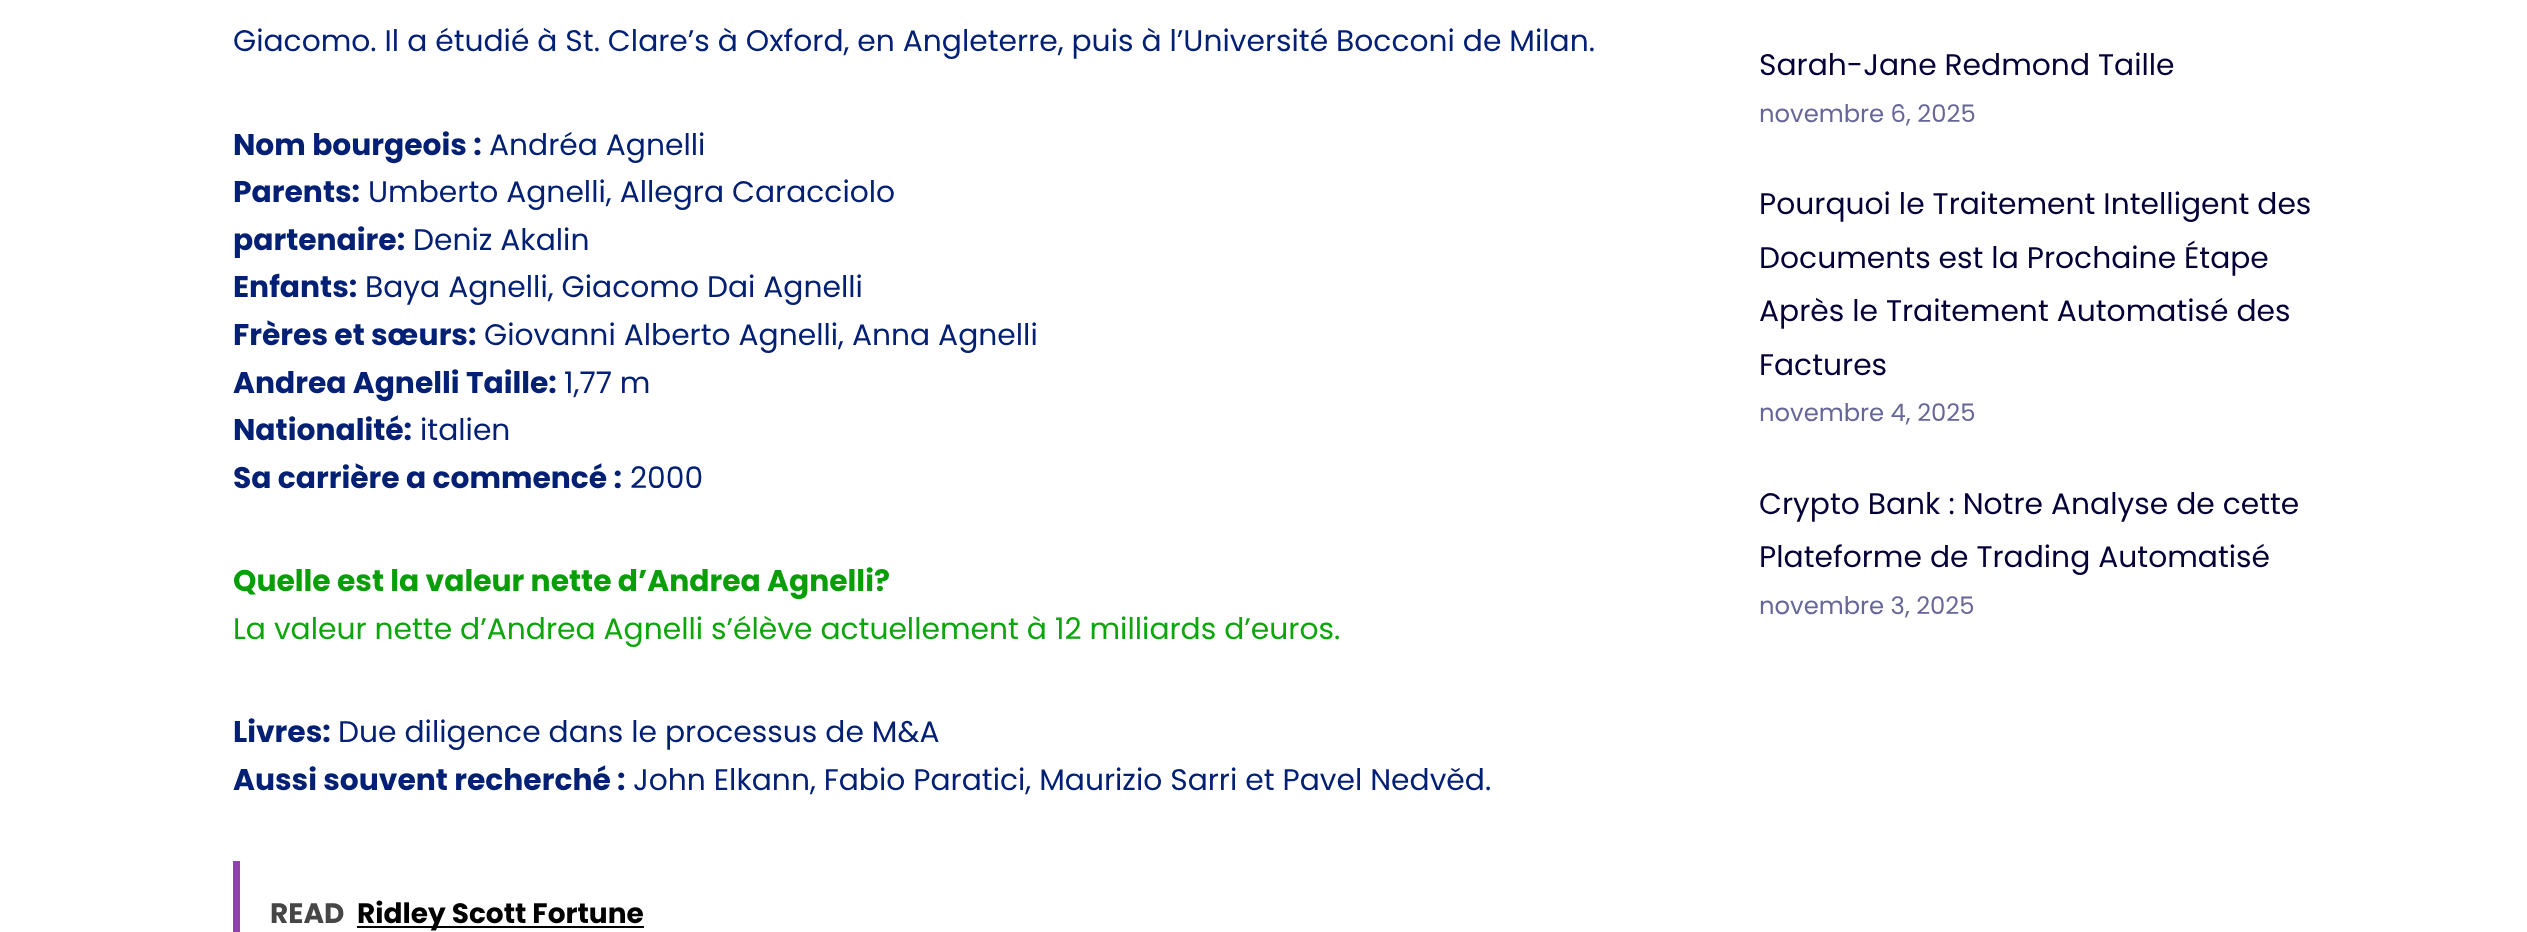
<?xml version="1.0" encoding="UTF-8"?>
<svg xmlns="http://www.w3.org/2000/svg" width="2527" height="932">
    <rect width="100%" height="100%" fill="#FFFFFF"/>
    <text x="233" y="51" font-family="Poppins" font-size="29.75" fill="#032075">Giacomo. Il a étudié à St. Clare’s à Oxford, en Angleterre, puis à l’Université Bocconi de Milan.</text>
    <text x="233" y="155" font-family="Poppins" font-size="29.75" font-weight="700" fill="#032075">Nom bourgeois :</text>
    <text x="489" y="155" font-family="Poppins" font-size="29.75" fill="#032075">Andréa Agnelli</text>
    <text x="233" y="202" font-family="Poppins" font-size="29.75" font-weight="700" fill="#032075">Parents:</text>
    <text x="368" y="202" font-family="Poppins" font-size="29.75" fill="#032075">Umberto Agnelli, Allegra Caracciolo</text>
    <text x="233" y="250" font-family="Poppins" font-size="29.75" font-weight="700" fill="#032075">partenaire:</text>
    <text x="413" y="250" font-family="Poppins" font-size="29.75" fill="#032075">Deniz Akalin</text>
    <text x="233" y="297" font-family="Poppins" font-size="29.75" font-weight="700" fill="#032075">Enfants:</text>
    <text x="365" y="297" font-family="Poppins" font-size="29.75" fill="#032075">Baya Agnelli, Giacomo Dai Agnelli</text>
    <text x="233" y="345" font-family="Poppins" font-size="29.75" font-weight="700" fill="#032075">Frères et sœurs:</text>
    <text x="484" y="345" font-family="Poppins" font-size="29.75" fill="#032075">Giovanni Alberto Agnelli, Anna Agnelli</text>
    <text x="233" y="393" font-family="Poppins" font-size="29.75" font-weight="700" fill="#032075">Andrea Agnelli Taille:</text>
    <text x="564" y="393" font-family="Poppins" font-size="29.75" fill="#032075">1,77 m</text>
    <text x="233" y="440" font-family="Poppins" font-size="29.75" font-weight="700" fill="#032075">Nationalité:</text>
    <text x="420" y="440" font-family="Poppins" font-size="29.75" fill="#032075">italien</text>
    <text x="233" y="488" font-family="Poppins" font-size="29.75" font-weight="700" fill="#032075">Sa carrière a commencé :</text>
    <text x="630" y="488" font-family="Poppins" font-size="29.75" fill="#032075">2000</text>
    <text x="233" y="591" font-family="Poppins" font-size="29.75" font-weight="700" fill="#089E08">Quelle est la valeur nette d’Andrea Agnelli?</text>
    <text x="233" y="639" font-family="Poppins" font-size="29.75" fill="#0AA60A">La valeur nette d’Andrea Agnelli s’élève actuellement à 12 milliards d’euros.</text>
    <text x="233" y="742" font-family="Poppins" font-size="29.75" font-weight="700" fill="#032075">Livres:</text>
    <text x="338" y="742" font-family="Poppins" font-size="29.75" fill="#032075">Due diligence dans le processus de M&amp;A</text>
    <text x="233" y="790" font-family="Poppins" font-size="29.75" font-weight="700" fill="#032075">Aussi souvent recherché :</text>
    <text x="633" y="790" font-family="Poppins" font-size="29.75" fill="#032075">John Elkann, Fabio Paratici, Maurizio Sarri et Pavel Nedvěd.</text>
    <rect x="233" y="861" width="7" height="71" fill="#8E44AD"/>
    <text x="270" y="923" font-family="Poppins" font-size="28" font-weight="700" fill="#464646">READ</text>
    <rect x="357" y="926" width="287" height="2" fill="#000000"/>
    <text x="357" y="923" font-family="Poppins" font-size="28" font-weight="700" fill="#000000">Ridley Scott Fortune</text>
    <text x="1759" y="75" font-family="Poppins" font-size="29.75" fill="#040037">Sarah-Jane Redmond Taille</text>
    <text x="1759" y="122" font-family="Poppins" font-size="24.25" fill="#666699">novembre 6, 2025</text>
    <text font-family="Poppins" font-size="29.75" fill="#040037">
        <tspan x="1759" y="214">Pourquoi le Traitement Intelligent des</tspan>
        <tspan x="1759" y="268">Documents est la Prochaine Étape</tspan>
        <tspan x="1759" y="321">Après le Traitement Automatisé des</tspan>
        <tspan x="1759" y="375">Factures</tspan>
    </text>
    <text x="1759" y="421" font-family="Poppins" font-size="24.25" fill="#666699">novembre 4, 2025</text>
    <text font-family="Poppins" font-size="29.75" fill="#040037">
        <tspan x="1759" y="514">Crypto Bank : Notre Analyse de cette</tspan>
        <tspan x="1759" y="567">Plateforme de Trading Automatisé</tspan>
    </text>
    <text x="1759" y="614" font-family="Poppins" font-size="24.25" fill="#666699">novembre 3, 2025</text>
</svg>
